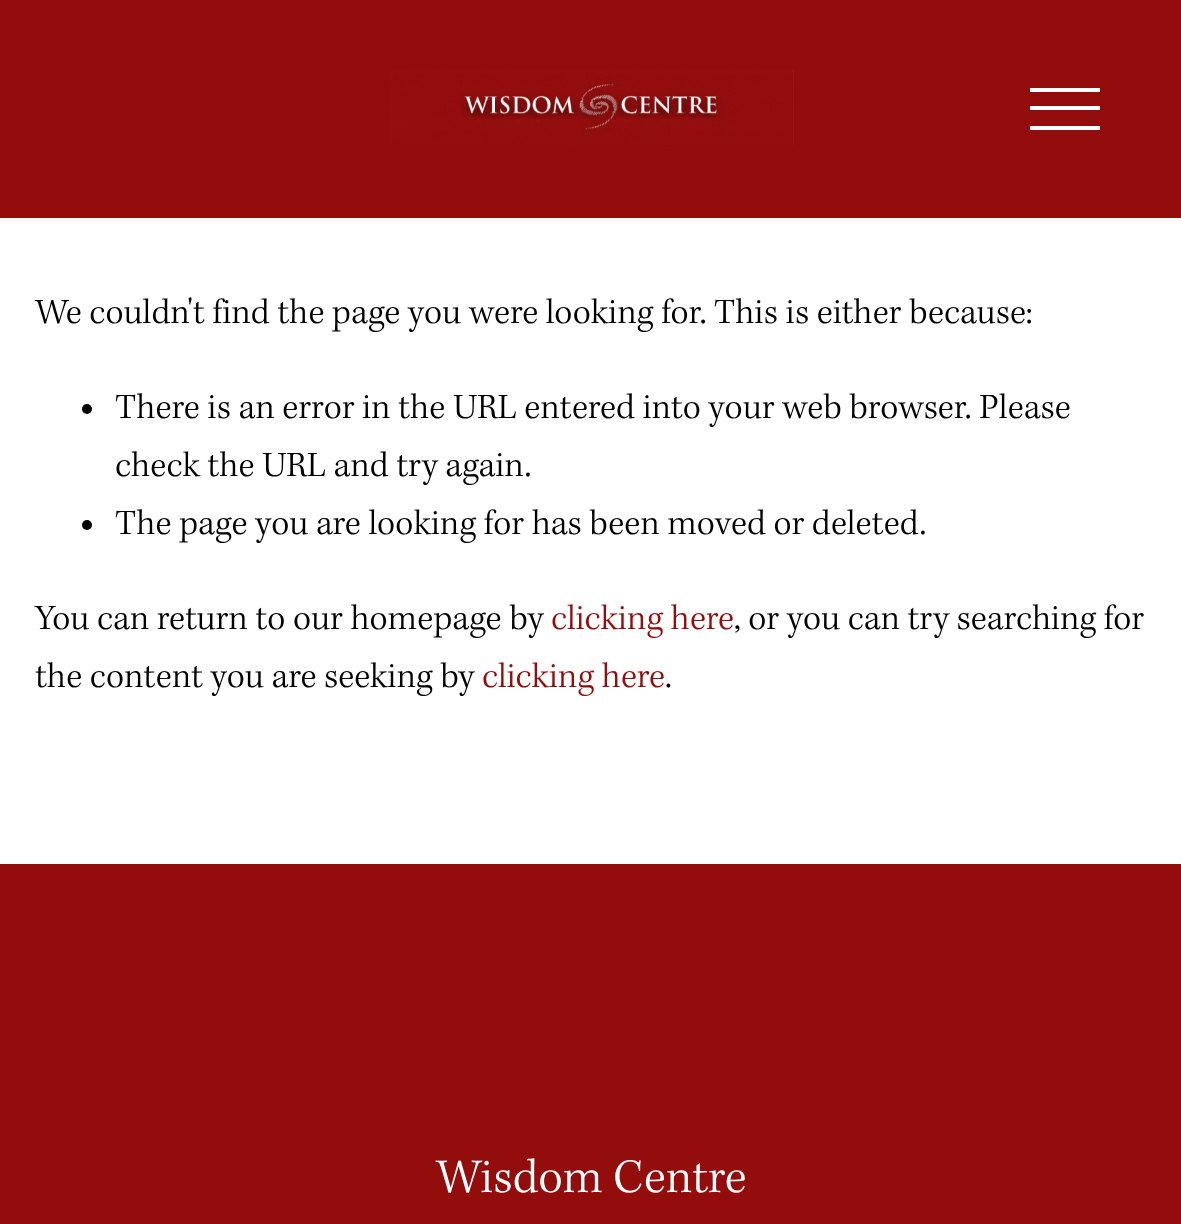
<?xml version="1.0" encoding="UTF-8"?>
<svg xmlns="http://www.w3.org/2000/svg" width="1181" height="1224">
    <rect width="100%" height="100%" fill="#FFFFFF"/>
    <rect x="0" y="0" width="1181" height="218" fill="#930D0D"/>
    <image x="390" y="70" width="404" height="76" href="img_01.png"/>
    <rect x="1030" y="88" width="70" height="4" fill="#FFFFFF"/>
    <rect x="1030" y="106" width="70" height="4" fill="#FFFFFF"/>
    <rect x="1030" y="126" width="70" height="4" fill="#FFFFFF"/>
    <text x="35" y="323" font-family="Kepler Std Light" font-size="36.4" font-weight="300" fill="#000000">We couldn't find the page you were looking for. This is either because:</text>
    <circle cx="87" cy="409" r="5" fill="#000000"/>
    <text font-family="Kepler Std Light" font-size="36.4" font-weight="300" fill="#000000">
        <tspan x="115" y="418">There is an error in the URL entered into your web browser. Please</tspan>
        <tspan x="115" y="476">check the URL and try again.</tspan>
    </text>
    <circle cx="87" cy="525" r="5" fill="#000000"/>
    <text x="115" y="534" font-family="Kepler Std Light" font-size="36.4" font-weight="300" fill="#000000">The page you are looking for has been moved or deleted.</text>
    <text x="35" y="629" font-family="Kepler Std Light" font-size="36.4" font-weight="300" fill="#000000">You can return to our homepage by</text>
    <text x="551" y="629" font-family="Kepler Std Light" font-size="36.4" font-weight="300" fill="#930D0D">clicking here</text>
    <text x="734" y="629" font-family="Kepler Std Light" font-size="36.4" font-weight="300" fill="#000000">, or you can try searching for</text>
    <text x="35" y="687" font-family="Kepler Std Light" font-size="36.4" font-weight="300" fill="#000000">the content you are seeking by</text>
    <text x="482" y="687" font-family="Kepler Std Light" font-size="36.4" font-weight="300" fill="#930D0D">clicking here</text>
    <text x="665" y="687" font-family="Kepler Std Light" font-size="36.4" font-weight="300" fill="#000000">.</text>
    <rect x="0" y="864" width="1181" height="360" fill="#930D0D"/>
    <text x="436" y="1192" font-family="Kepler Std Light" font-size="49.5" font-weight="300" fill="#FFFFFF">Wisdom Centre</text>
</svg>
